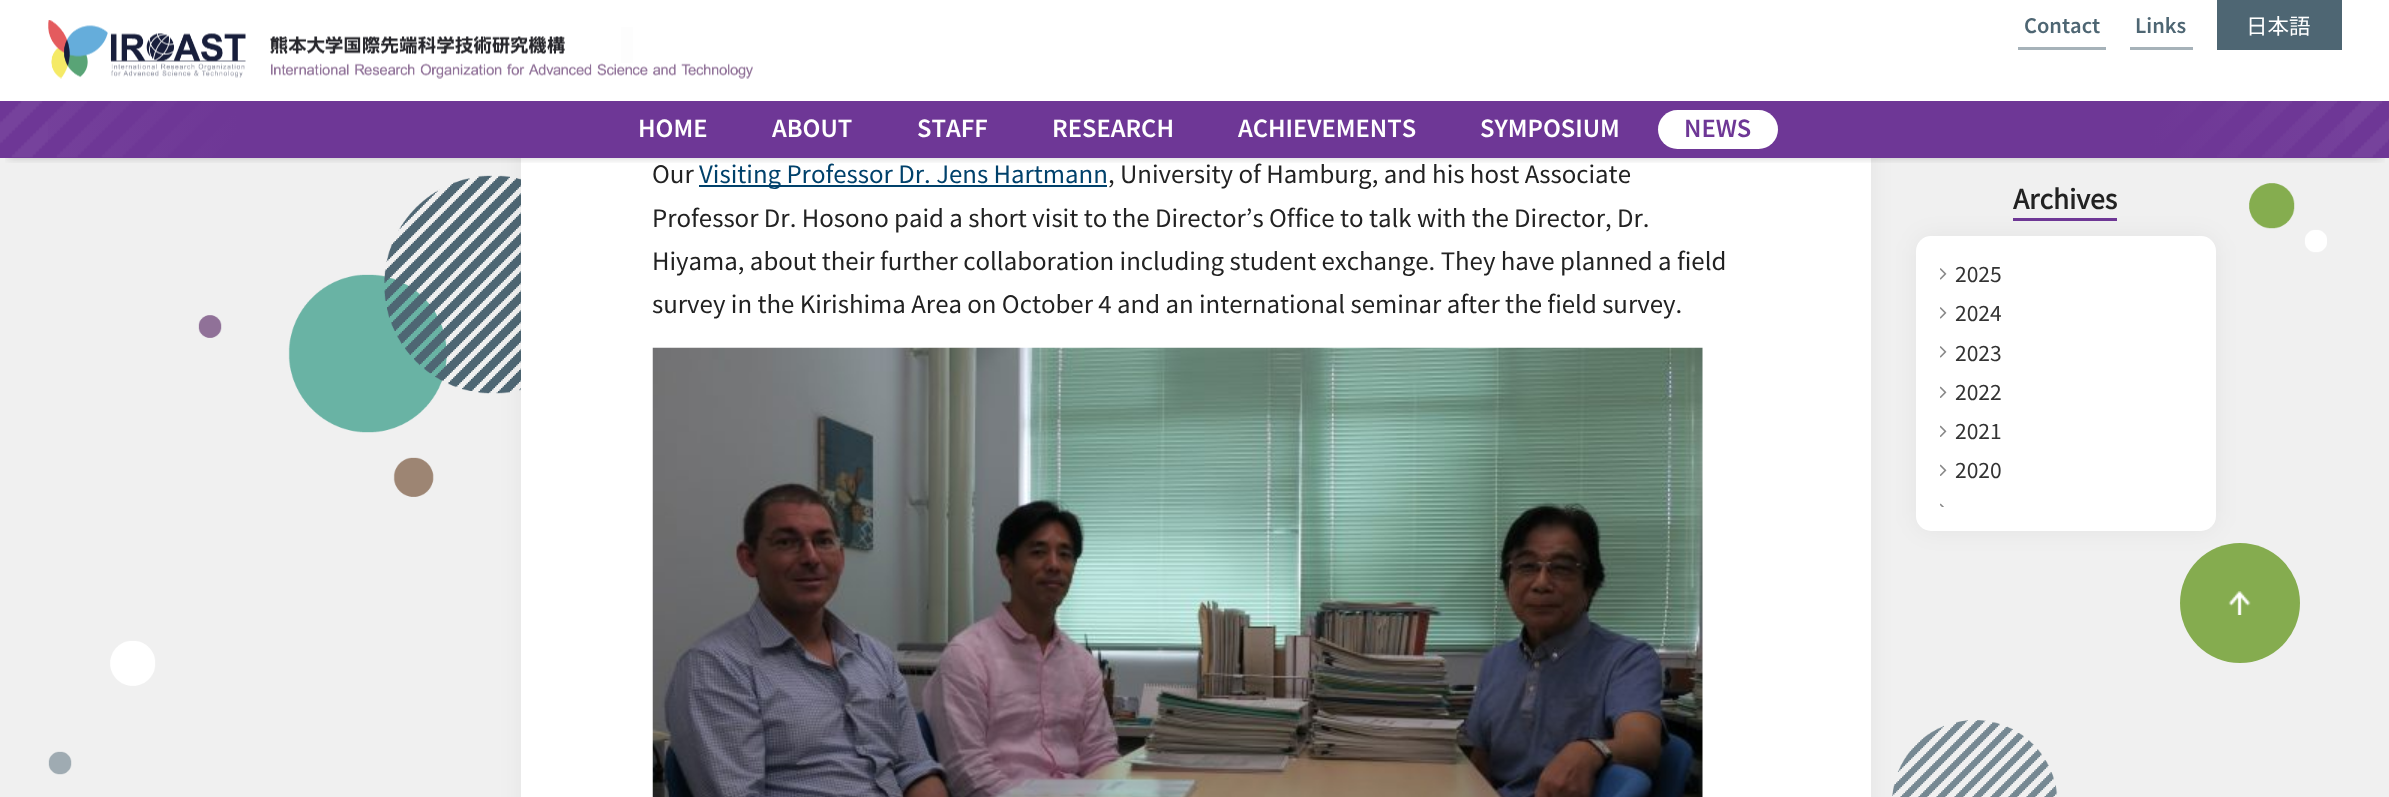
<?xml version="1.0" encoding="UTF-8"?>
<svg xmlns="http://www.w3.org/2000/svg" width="2389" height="797">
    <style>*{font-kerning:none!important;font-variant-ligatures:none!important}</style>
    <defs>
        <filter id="blur1" x="-50%" y="-200%" width="200%" height="500%"><feGaussianBlur stdDeviation="12"/></filter>
        <clipPath id="clip1"><rect x="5" y="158" width="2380" height="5"/></clipPath>
        <filter id="blur2" x="-50%" y="-200%" width="200%" height="500%"><feGaussianBlur stdDeviation="4"/></filter>
        <linearGradient id="g1" gradientUnits="userSpaceOnUse" x1="0" y1="129" x2="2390" y2="129"><stop offset="0" stop-color="#6E3796" stop-opacity="0"/><stop offset="0.1" stop-color="#6E3796"/><stop offset="0.9" stop-color="#6E3796"/><stop offset="1" stop-color="#6E3796" stop-opacity="0"/></linearGradient>
    </defs>
    <rect width="100%" height="100%" fill="#F0F0F0"/>
    <image x="48" y="175" width="2279" height="622" href="img_04.png"/>
    <rect x="521" y="-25" width="1350" height="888" rx="30" fill="#000000" fill-opacity="0.05" filter="url(#blur1)"/>
    <rect x="521" y="-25" width="1350" height="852" rx="30" fill="#FFFFFF"/>
    <path d="M 616.5 71 H 1774.5" fill="none" stroke="#CCCCCC" stroke-width="1.5" stroke-dasharray="1.5 1.5"/>
    <rect x="621" y="27" width="12" height="36" fill="#4E6673"/>
    <g clip-path="url(#clip1)">
        <rect x="8" y="15" width="2374" height="143" fill="#000000" fill-opacity="0.2" filter="url(#blur2)"/>
    </g>
    <rect x="0" y="0" width="2389" height="101" fill="#FFFFFF" fill-opacity="0.99"/>
    <image x="48" y="20" width="198" height="59" href="img_01.png"/>
    <image x="270" y="35" width="483" height="44" href="img_02.png"/>
    <text x="2024" y="33" font-family="Source Sans Pro" font-size="22.5" font-weight="600" fill="#4E6673">Contact</text>
    <rect x="2018" y="47" width="88" height="3" fill="#A6B2B9"/>
    <text x="2135" y="33" font-family="Source Sans Pro" font-size="22.5" font-weight="600" fill="#4E6673">Links</text>
    <rect x="2130" y="47" width="63" height="3" fill="#A6B2B9"/>
    <rect x="2217" y="0" width="125" height="50" fill="#4E6673"/>
    <text x="2246" y="34" font-family="Noto Sans JP" font-size="21.5" font-weight="100" fill="#FFFFFF">日本語</text>
    <rect x="0" y="101" width="2389" height="57" fill="#6E3796"/>
    <image x="0" y="101" width="2389" height="57" href="img_03.png"/>
    <rect x="48" y="101" width="2297" height="57" fill="url(#g1)"/>
    <text x="638" y="137" font-family="Source Sans Pro" font-size="26.5" font-weight="600" fill="#FFFFFF">HOME</text>
    <text x="772" y="137" font-family="Source Sans Pro" font-size="26.5" font-weight="600" fill="#FFFFFF">ABOUT</text>
    <text x="917" y="137" font-family="Source Sans Pro" font-size="26.5" font-weight="600" fill="#FFFFFF">STAFF</text>
    <text x="1052" y="137" font-family="Source Sans Pro" font-size="26.5" font-weight="600" fill="#FFFFFF">RESEARCH</text>
    <text x="1238" y="137" font-family="Source Sans Pro" font-size="26.5" font-weight="600" fill="#FFFFFF">ACHIEVEMENTS</text>
    <text x="1480" y="137" font-family="Source Sans Pro" font-size="26.5" font-weight="600" fill="#FFFFFF">SYMPOSIUM</text>
    <rect x="1658" y="110" width="120" height="39" rx="19.5" fill="#FFFFFF"/>
    <text x="1684" y="137" font-family="Source Sans Pro" font-size="26.5" font-weight="600" fill="#6E3796">NEWS</text>
    <text x="652" y="183" font-family="Noto Sans JP" font-size="24" font-weight="100" fill="#222222">Our</text>
    <rect x="699" y="185" width="408" height="2" fill="#00416B"/>
    <text x="699" y="183" font-family="Noto Sans JP" font-size="24" font-weight="100" fill="#00416B">Visiting Professor Dr. Jens Hartmann</text>
    <text x="1108" y="183" font-family="Noto Sans JP" font-size="24" font-weight="100" fill="#222222">, University of Hamburg, and his host Associate</text>
    <text x="652" y="227" font-family="Noto Sans JP" font-size="24" font-weight="100" fill="#222222">Professor Dr. Hosono paid a short visit to the Director’s Office</text>
    <text x="1340" y="227" font-family="Noto Sans JP" font-size="24" font-weight="100" fill="#222222">to talk with the Director, Dr.</text>
    <text font-family="Noto Sans JP" font-size="24" font-weight="100" fill="#222222">
        <tspan x="652" y="270">Hiyama, about their further collaboration including student exchange. They have planned a field</tspan>
        <tspan x="652" y="313">survey in the Kirishima Area on October 4 and an international seminar after the field survey.</tspan>
    </text>
    <image x="652" y="347" width="1051" height="450" href="img_05.png"/>
    <rect x="2013" y="218" width="104" height="3" fill="#6E3796"/>
    <text x="2013" y="209" font-family="Noto Sans JP" font-size="26.5" font-weight="700" fill="#222222">Archives</text>
    <rect x="1916" y="236" width="300" height="295" rx="15" fill="#000000" fill-opacity="0.05" filter="url(#blur1)"/>
    <rect x="1916" y="236" width="300" height="295" rx="15" fill="#FFFFFF"/>
    <image x="1940" y="268" width="7" height="12" href="img_06.png"/>
    <text x="1955" y="282" font-family="Noto Sans JP" font-size="21" font-weight="100" fill="#333333">2025</text>
    <image x="1940" y="307" width="7" height="12" href="img_06.png"/>
    <text x="1955" y="321" font-family="Noto Sans JP" font-size="21" font-weight="100" fill="#333333">2024</text>
    <image x="1940" y="346" width="7" height="12" href="img_06.png"/>
    <text x="1955" y="361" font-family="Noto Sans JP" font-size="21" font-weight="100" fill="#333333">2023</text>
    <image x="1940" y="386" width="7" height="12" href="img_07.png"/>
    <text x="1955" y="400" font-family="Noto Sans JP" font-size="21" font-weight="100" fill="#333333">2022</text>
    <image x="1940" y="425" width="7" height="12" href="img_07.png"/>
    <text x="1955" y="439" font-family="Noto Sans JP" font-size="21" font-weight="100" fill="#333333">2021</text>
    <image x="1940" y="464" width="7" height="12" href="img_07.png"/>
    <text x="1955" y="478" font-family="Noto Sans JP" font-size="21" font-weight="100" fill="#333333">2020</text>
    <image x="1940" y="503" width="4" height="4" href="img_08.png"/>
    <circle cx="2240" cy="603" r="60" fill="#85AC4F"/>
    <image x="2228" y="591" width="23" height="24" href="img_09.png"/>
</svg>
